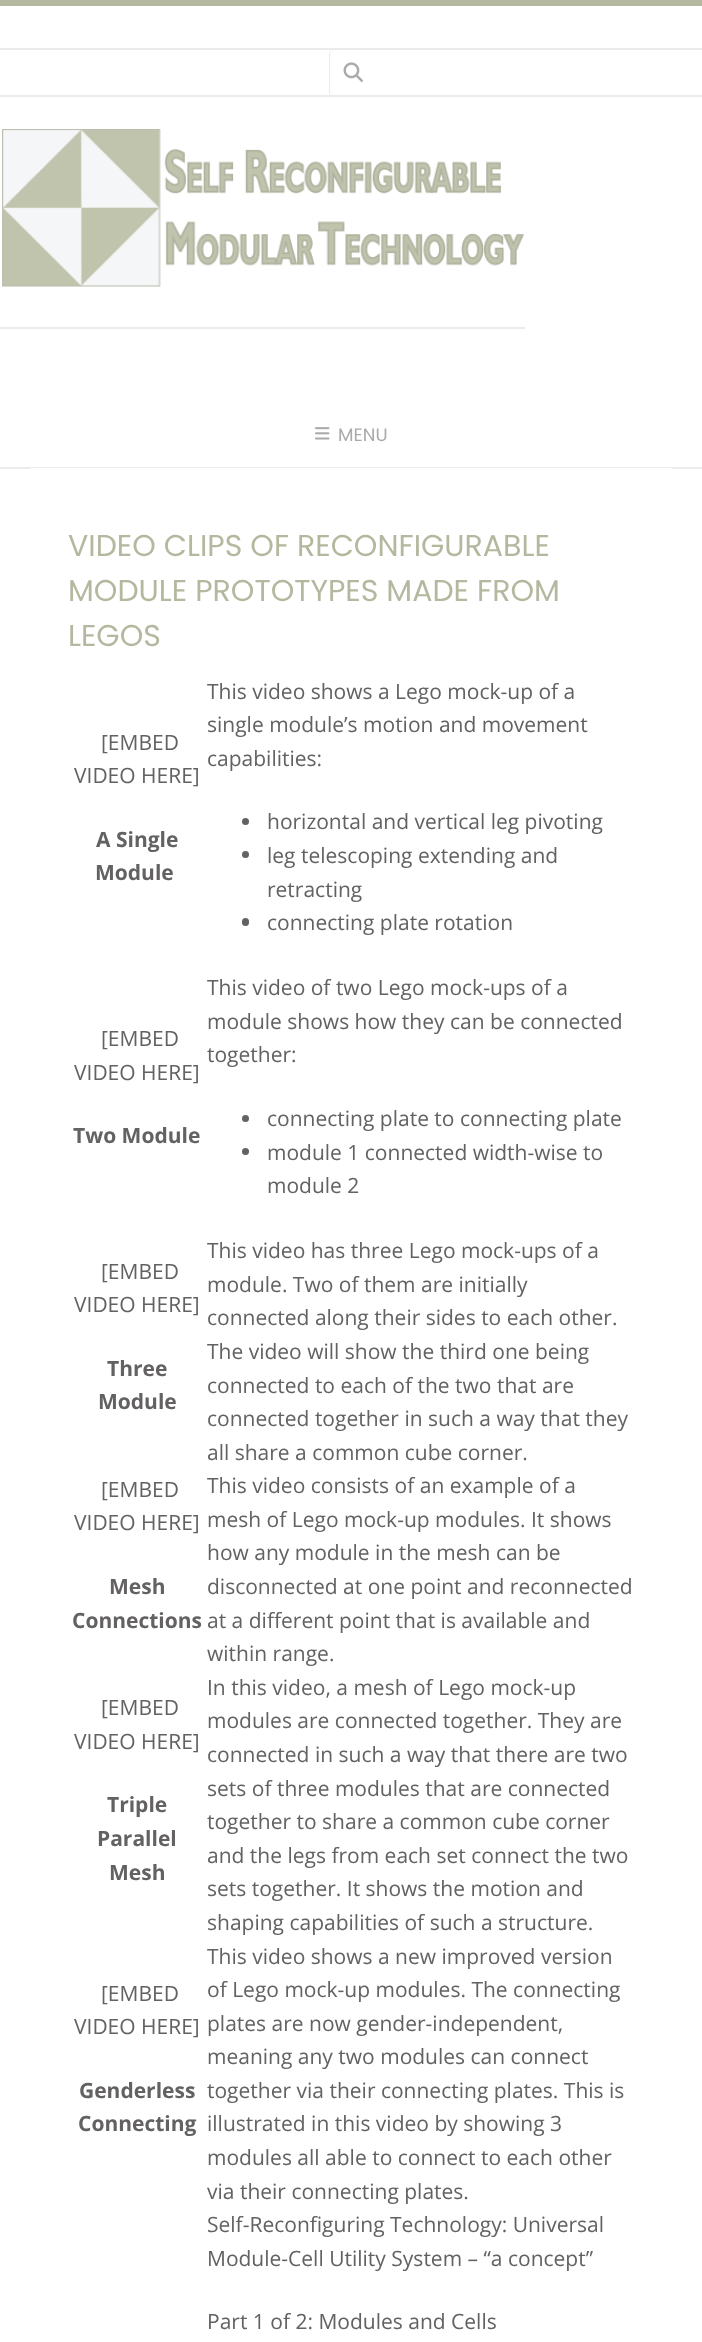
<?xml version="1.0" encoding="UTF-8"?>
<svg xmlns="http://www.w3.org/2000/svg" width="702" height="2342">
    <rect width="100%" height="100%" fill="#FFFFFF"/>
    <rect x="0" y="0" width="702" height="6" fill="#B4B89E"/>
    <rect x="0" y="48" width="702" height="2" fill="#EBEBEB"/>
    <rect x="0" y="95" width="702" height="2" fill="#EBEBEB"/>
    <path d="M 334 50 C 331 50 329 52 329 55 V 91 C 329 94 331 96 334 96 C 332 96 330 94 330 92 V 54 C 330 52 332 50 334 50 Z" fill="#EBEBEB"/>
    <image x="343" y="62" width="20" height="20" href="img_01.png"/>
    <rect x="0" y="467" width="702" height="2" fill="#000000" fill-opacity="0.08"/>
    <rect x="0" y="327" width="525" height="2" fill="#EBEBEB"/>
    <image x="2" y="129" width="522" height="158" href="img_02.png"/>
    <image x="315" y="427" width="15" height="13" href="img_03.png"/>
    <text x="338" y="441" font-family="Poppins" font-size="18" fill="#AAAAAA">MENU</text>
    <rect x="30" y="468" width="642" height="1" fill="#FFFFFF"/>
    <text font-family="Poppins" font-size="30" fill="#B4B89E">
        <tspan x="68" y="556">VIDEO CLIPS OF RECONFIGURABLE</tspan>
        <tspan x="68" y="601">MODULE PROTOTYPES MADE FROM</tspan>
        <tspan x="68" y="646">LEGOS</tspan>
    </text>
    <text x="101" y="750" font-family="Open Sans" font-size="21" fill="#636161">[EMBED</text>
    <text x="74" y="783" font-family="Open Sans" font-size="21" fill="#636161">VIDEO HERE]</text>
    <text x="96" y="847" font-family="Open Sans" font-size="21" font-weight="700" fill="#636161">A Single</text>
    <text x="95" y="880" font-family="Open Sans" font-size="21" font-weight="700" fill="#636161">Module</text>
    <text font-family="Open Sans" font-size="21" fill="#636161">
        <tspan x="207" y="699">This video shows a Lego mock-up of a</tspan>
        <tspan x="207" y="732">single module’s motion and movement</tspan>
        <tspan x="207" y="766">capabilities:</tspan>
    </text>
    <circle cx="245.5" cy="821.5" r="3.5" fill="#636161"/>
    <text x="267" y="829" font-family="Open Sans" font-size="21" fill="#636161">horizontal and vertical leg pivoting</text>
    <circle cx="245.5" cy="854.5" r="3.5" fill="#636161"/>
    <text font-family="Open Sans" font-size="21" fill="#636161">
        <tspan x="267" y="863">leg telescoping extending and</tspan>
        <tspan x="267" y="897">retracting</tspan>
    </text>
    <rect x="242" y="918" width="7" height="8" rx="3.5" fill="#636161"/>
    <text x="267" y="930" font-family="Open Sans" font-size="21" fill="#636161">connecting plate rotation</text>
    <text x="101" y="1046" font-family="Open Sans" font-size="21" fill="#636161">[EMBED</text>
    <text x="74" y="1080" font-family="Open Sans" font-size="21" fill="#636161">VIDEO HERE]</text>
    <text x="73" y="1143" font-family="Open Sans" font-size="21" font-weight="700" fill="#636161">Two Module</text>
    <text font-family="Open Sans" font-size="21" fill="#636161">
        <tspan x="207" y="995">This video of two Lego mock-ups of a</tspan>
        <tspan x="207" y="1029">module shows how they can be connected</tspan>
        <tspan x="207" y="1062">together:</tspan>
    </text>
    <circle cx="245.5" cy="1118.5" r="3.5" fill="#636161"/>
    <text x="267" y="1126" font-family="Open Sans" font-size="21" fill="#636161">connecting plate to connecting plate</text>
    <circle cx="245.5" cy="1151.5" r="3.5" fill="#636161"/>
    <text font-family="Open Sans" font-size="21" fill="#636161">
        <tspan x="267" y="1160">module 1 connected width-wise to</tspan>
        <tspan x="267" y="1193">module 2</tspan>
    </text>
    <text x="101" y="1279" font-family="Open Sans" font-size="21" fill="#636161">[EMBED</text>
    <text x="74" y="1312" font-family="Open Sans" font-size="21" fill="#636161">VIDEO HERE]</text>
    <text x="107" y="1376" font-family="Open Sans" font-size="21" font-weight="700" fill="#636161">Three</text>
    <text x="98" y="1409" font-family="Open Sans" font-size="21" font-weight="700" fill="#636161">Module</text>
    <text font-family="Open Sans" font-size="21" fill="#636161">
        <tspan x="207" y="1258">This video has three Lego mock-ups of a</tspan>
        <tspan x="207" y="1292">module. Two of them are initially</tspan>
        <tspan x="207" y="1325">connected along their sides to each other.</tspan>
        <tspan x="207" y="1359">The video will show the third one being</tspan>
        <tspan x="207" y="1393">connected to each of the two that are</tspan>
        <tspan x="207" y="1426">connected together in such a way that they</tspan>
        <tspan x="207" y="1460">all share a common cube corner.</tspan>
    </text>
    <text x="101" y="1497" font-family="Open Sans" font-size="21" fill="#636161">[EMBED</text>
    <text x="74" y="1530" font-family="Open Sans" font-size="21" fill="#636161">VIDEO HERE]</text>
    <text x="109" y="1594" font-family="Open Sans" font-size="21" font-weight="700" fill="#636161">Mesh</text>
    <text x="72" y="1628" font-family="Open Sans" font-size="21" font-weight="700" fill="#636161">Connections</text>
    <text font-family="Open Sans" font-size="21" fill="#636161">
        <tspan x="207" y="1493">This video consists of an example of a</tspan>
        <tspan x="207" y="1527">mesh of Lego mock-up modules. It shows</tspan>
        <tspan x="207" y="1560">how any module in the mesh can be</tspan>
        <tspan x="207" y="1594">disconnected at one point and reconnected</tspan>
        <tspan x="207" y="1628">at a different point that is available and</tspan>
        <tspan x="207" y="1661">within range.</tspan>
    </text>
    <text x="101" y="1715" font-family="Open Sans" font-size="21" fill="#636161">[EMBED</text>
    <text x="74" y="1749" font-family="Open Sans" font-size="21" fill="#636161">VIDEO HERE]</text>
    <text x="107" y="1812" font-family="Open Sans" font-size="21" font-weight="700" fill="#636161">Triple</text>
    <text x="97" y="1846" font-family="Open Sans" font-size="21" font-weight="700" fill="#636161">Parallel</text>
    <text x="109" y="1880" font-family="Open Sans" font-size="21" font-weight="700" fill="#636161">Mesh</text>
    <text font-family="Open Sans" font-size="21" fill="#636161">
        <tspan x="207" y="1695">In this video, a mesh of Lego mock-up</tspan>
        <tspan x="207" y="1728">modules are connected together. They are</tspan>
        <tspan x="207" y="1762">connected in such a way that there are two</tspan>
        <tspan x="207" y="1796">sets of three modules that are connected</tspan>
        <tspan x="207" y="1829">together to share a common cube corner</tspan>
        <tspan x="207" y="1863">and the legs from each set connect the two</tspan>
        <tspan x="207" y="1896">sets together. It shows the motion and</tspan>
        <tspan x="207" y="1930">shaping capabilities of such a structure.</tspan>
    </text>
    <text x="101" y="2001" font-family="Open Sans" font-size="21" fill="#636161">[EMBED</text>
    <text x="74" y="2034" font-family="Open Sans" font-size="21" fill="#636161">VIDEO HERE]</text>
    <text x="79" y="2098" font-family="Open Sans" font-size="21" font-weight="700" fill="#636161">Genderless</text>
    <text x="78" y="2131" font-family="Open Sans" font-size="21" font-weight="700" fill="#636161">Connecting</text>
    <text font-family="Open Sans" font-size="21" fill="#636161">
        <tspan x="207" y="1964">This video shows a new improved version</tspan>
        <tspan x="207" y="1997">of Lego mock-up modules. The connecting</tspan>
        <tspan x="207" y="2031">plates are now gender-independent,</tspan>
        <tspan x="207" y="2064">meaning any two modules can connect</tspan>
        <tspan x="207" y="2098">together via their connecting plates. This is</tspan>
        <tspan x="207" y="2131">illustrated in this video by showing 3</tspan>
        <tspan x="207" y="2165">modules all able to connect to each other</tspan>
        <tspan x="207" y="2199">via their connecting plates.</tspan>
        <tspan x="207" y="2232">Self-Reconfiguring Technology: Universal</tspan>
        <tspan x="207" y="2266">Module-Cell Utility System – “a concept”</tspan>
    </text>
    <text x="207" y="2329" font-family="Open Sans" font-size="21" fill="#636161">Part 1 of 2: Modules and Cells</text>
</svg>
